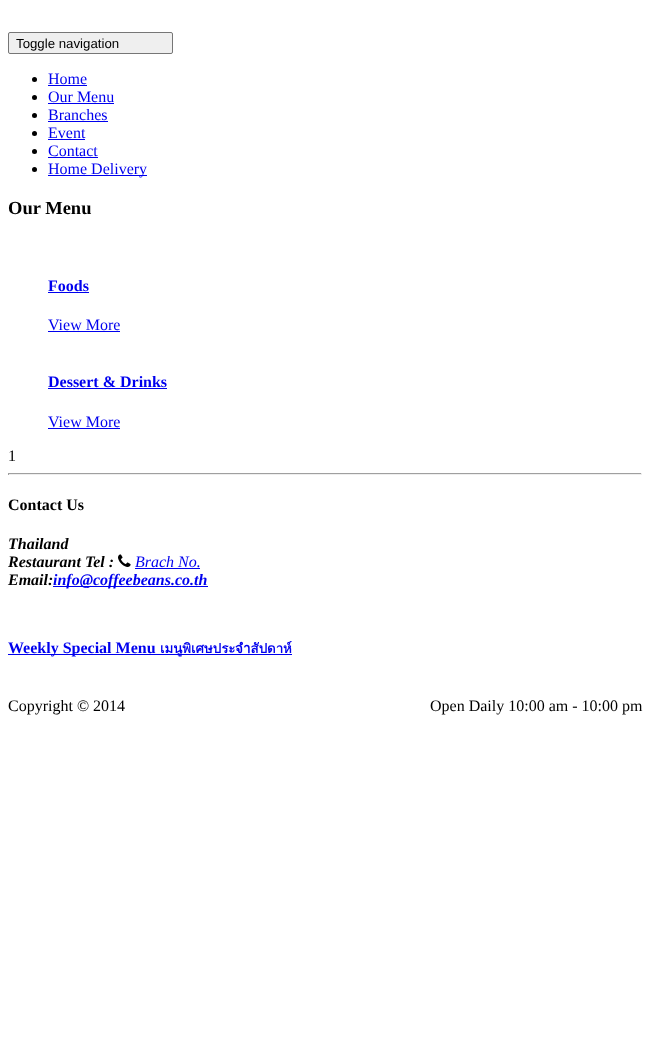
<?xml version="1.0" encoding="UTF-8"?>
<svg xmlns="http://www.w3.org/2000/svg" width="650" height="1037">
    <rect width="100%" height="100%" fill="#FFFFFF"/>
    <rect x="8.5" y="32.5" width="164" height="21" rx="1.5" fill="#EFEFEF" stroke="#767676"/>
    <text x="16" y="48" font-family="Liberation Sans" font-size="13.25" fill="#000000">Toggle navigation</text>
    <circle cx="34.5" cy="79.5" r="2.5" fill="#000000"/>
    <text x="48" y="84" font-family="Liberation Serif" font-size="16" fill="#0000EE">Home</text>
    <rect x="48" y="85" width="39" height="1" fill="#0000EE"/>
    <circle cx="34.5" cy="97.5" r="2.5" fill="#000000"/>
    <text x="48" y="102" font-family="Liberation Serif" font-size="16" fill="#0000EE">Our Menu</text>
    <rect x="48" y="103" width="66" height="1" fill="#0000EE"/>
    <circle cx="34.5" cy="115.5" r="2.5" fill="#000000"/>
    <text x="48" y="120" font-family="Liberation Serif" font-size="16" fill="#0000EE">Branches</text>
    <rect x="48" y="121" width="60" height="1" fill="#0000EE"/>
    <circle cx="34.5" cy="133.5" r="2.5" fill="#000000"/>
    <text x="48" y="138" font-family="Liberation Serif" font-size="16" fill="#0000EE">Event</text>
    <rect x="48" y="139" width="37" height="1" fill="#0000EE"/>
    <circle cx="34.5" cy="151.5" r="2.5" fill="#000000"/>
    <text x="48" y="156" font-family="Liberation Serif" font-size="16" fill="#0000EE">Contact</text>
    <rect x="48" y="157" width="50" height="1" fill="#0000EE"/>
    <circle cx="34.5" cy="169.5" r="2.5" fill="#000000"/>
    <rect x="48" y="175" width="99" height="1" fill="#0000EE"/>
    <text x="48" y="174" font-family="Liberation Serif" font-size="16" fill="#0000EE">Home Delivery</text>
    <text x="8" y="214" font-family="Liberation Serif" font-size="18.5" font-weight="700" fill="#000000">Our Menu</text>
    <text x="48" y="291" font-family="Liberation Serif" font-size="16" font-weight="700" fill="#0000EE">Foods</text>
    <rect x="48" y="292" width="41" height="1" fill="#0000EE"/>
    <text x="48" y="330" font-family="Liberation Serif" font-size="16" fill="#0000EE">View More</text>
    <rect x="48" y="331" width="72" height="1" fill="#0000EE"/>
    <text x="48" y="387" font-family="Liberation Serif" font-size="16" font-weight="700" fill="#0000EE">Dessert &amp; Drinks</text>
    <rect x="48" y="388" width="119" height="1" fill="#0000EE"/>
    <text x="48" y="427" font-family="Liberation Serif" font-size="16" fill="#0000EE">View More</text>
    <rect x="48" y="428" width="72" height="1" fill="#0000EE"/>
    <text x="8" y="461" font-family="Liberation Serif" font-size="16" fill="#000000">1</text>
    <rect x="8" y="473" width="634" height="1" fill="#9F9F9F"/>
    <rect x="641" y="473" width="1" height="2" fill="#EEEEEE"/>
    <rect x="8" y="474" width="634" height="1" fill="#EEEEEE"/>
    <rect x="8" y="473" width="1" height="2" fill="#9F9F9F"/>
    <text x="8" y="510" font-family="Liberation Serif" font-size="16" font-weight="700" fill="#000000">Contact Us</text>
    <text font-family="Liberation Serif" font-size="16" font-weight="700" font-style="italic" fill="#000000">
        <tspan x="8" y="549">Thailand</tspan>
        <tspan x="8" y="567">Restaurant Tel :</tspan>
    </text>
    <image x="118" y="554" width="13" height="13" href="img_01.png"/>
    <text x="135" y="567" font-family="Liberation Serif" font-size="16" font-style="italic" fill="#0000EE">Brach No.</text>
    <rect x="135" y="568" width="65" height="1" fill="#0000EE"/>
    <text x="8" y="585" font-family="Liberation Serif" font-size="16" font-weight="700" font-style="italic" fill="#000000">Email:</text>
    <rect x="53" y="586" width="155" height="1" fill="#0000EE"/>
    <text x="53" y="585" font-family="Liberation Serif" font-size="16" font-weight="700" font-style="italic" fill="#0000EE">info@coffeebeans.co.th</text>
    <rect x="8" y="654" width="284" height="1" fill="#0000EE"/>
    <text x="8" y="653" font-family="Liberation Serif" font-size="16" font-weight="700" fill="#0000EE">Weekly Special Menu</text>
    <text x="160" y="653" font-family="Loma" font-size="13.25" font-weight="700" fill="#0000EE">เมนูพิเศษประจำสัปดาห์</text>
    <text x="8" y="711" font-family="Liberation Serif" font-size="16" fill="#000000">Copyright © 2014</text>
    <text x="430" y="711" font-family="Liberation Serif" font-size="16" fill="#000000">Open Daily 10:00 am - 10:00 pm</text>
</svg>
